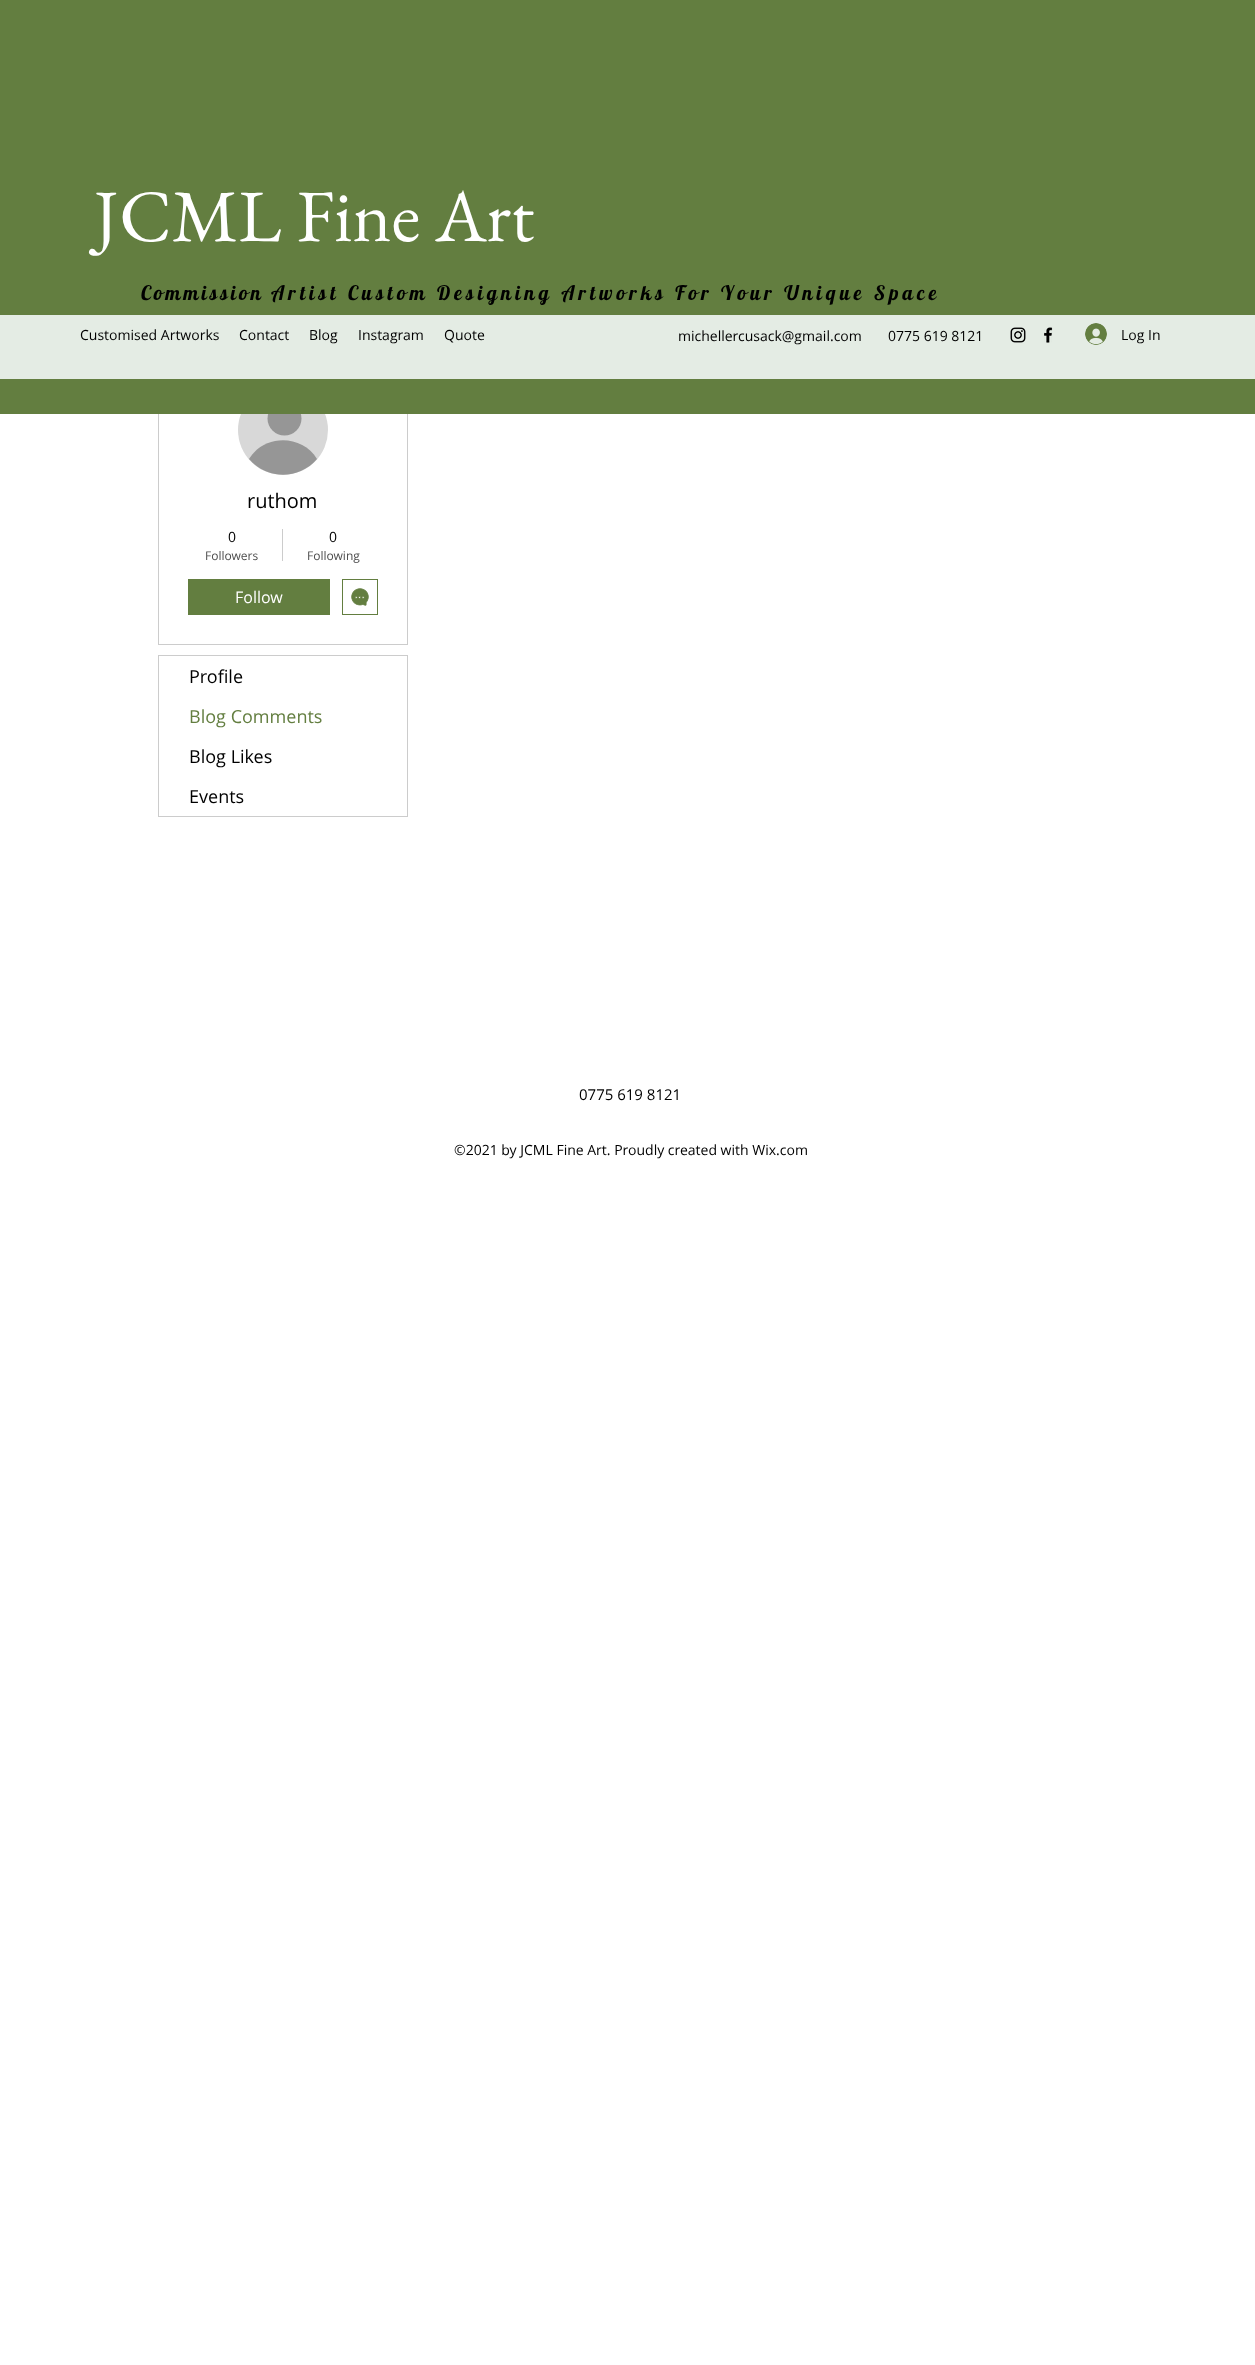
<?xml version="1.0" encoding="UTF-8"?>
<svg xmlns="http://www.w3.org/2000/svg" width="1255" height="2365">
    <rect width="100%" height="100%" fill="#FFFFFF"/>
    <rect x="158.5" y="355.5" width="249" height="289" fill="none" stroke="#CCCCCC"/>
    <circle cx="283" cy="430" r="45" fill="#D8D8D8"/>
    <circle cx="284.5" cy="418.5" r="17" fill="#969696"/>
    <rect x="0" y="0" width="1255" height="414" fill="#637E40"/>
    <text x="94" y="241" font-family="EB Garamond" font-size="74" fill="#FFFFFF">JCML Fine Art</text>
    <text x="141" y="300" font-family="Lobster" font-size="20" letter-spacing="2.9" fill="#000000">Commission</text>
    <text x="271" y="300" font-family="Lobster" font-size="20" letter-spacing="4" fill="#000000">Artist Custom Designing Artworks For Your Unique Space</text>
    <rect x="0" y="315" width="1255" height="64" fill="#E4ECE4"/>
    <text x="80" y="340" font-family="Open Sans" font-size="14" fill="#000000">Customised Artworks</text>
    <text x="239" y="340" font-family="Open Sans" font-size="14" fill="#000000">Contact</text>
    <text x="309" y="340" font-family="Open Sans" font-size="14" fill="#000000">Blog</text>
    <text x="358" y="340" font-family="Open Sans" font-size="14" fill="#000000">Instagram</text>
    <text x="444" y="340" font-family="Open Sans" font-size="14" fill="#000000">Quote</text>
    <text x="678" y="341" font-family="Open Sans" font-size="14" fill="#000000">michellercusack@gmail.com</text>
    <text x="888" y="341" font-family="Open Sans" font-size="14" fill="#000000">0775 619 8121</text>
    <image x="1010" y="327" width="16" height="16" href="img_01.png"/>
    <image x="1044" y="327" width="9" height="16" href="img_02.png"/>
    <image x="1085" y="323" width="22" height="22" href="img_03.png"/>
    <text x="1121" y="340" font-family="Open Sans" font-size="14" fill="#000000">Log In</text>
    <path d="M 317 459 C 299 480 267 480 249 459 C 264 434 302 434 317 459 Z" fill="#969696"/>
    <text x="247" y="508" font-family="Open Sans" font-size="20" fill="#000000">ruthom</text>
    <text x="228" y="542" font-family="Open Sans" font-size="14" fill="#000000">0</text>
    <text x="205" y="560" font-family="Open Sans" font-size="12" fill="#4D4D4D">Followers</text>
    <rect x="282" y="529" width="1" height="32" fill="#CCCCCC"/>
    <text x="329" y="542" font-family="Open Sans" font-size="14" fill="#000000">0</text>
    <text x="307" y="560" font-family="Open Sans" font-size="12" fill="#4D4D4D">Following</text>
    <rect x="188" y="579" width="142" height="36" fill="#637E40"/>
    <text x="235" y="603" font-family="Open Sans" font-size="16" fill="#FFFFFF">Follow</text>
    <rect x="342.5" y="579.5" width="35" height="35" fill="none" stroke="#637E40"/>
    <image x="351" y="588" width="18" height="18" href="img_04.png"/>
    <rect x="158.5" y="655.5" width="249" height="161" fill="none" stroke="#CCCCCC"/>
    <text x="189" y="683" font-family="Open Sans" font-size="18" fill="#000000">Profile</text>
    <text x="189" y="723" font-family="Open Sans" font-size="18" fill="#637E40">Blog Comments</text>
    <text x="189" y="763" font-family="Open Sans" font-size="18" fill="#000000">Blog Likes</text>
    <text x="189" y="803" font-family="Open Sans" font-size="18" fill="#000000">Events</text>
    <text x="579" y="1100" font-family="Open Sans" font-size="15" fill="#000000">0775 619 8121</text>
    <text x="454" y="1155" font-family="Open Sans" font-size="14" fill="#000000">©2021 by JCML Fine Art. Proudly created with Wix.com</text>
</svg>
